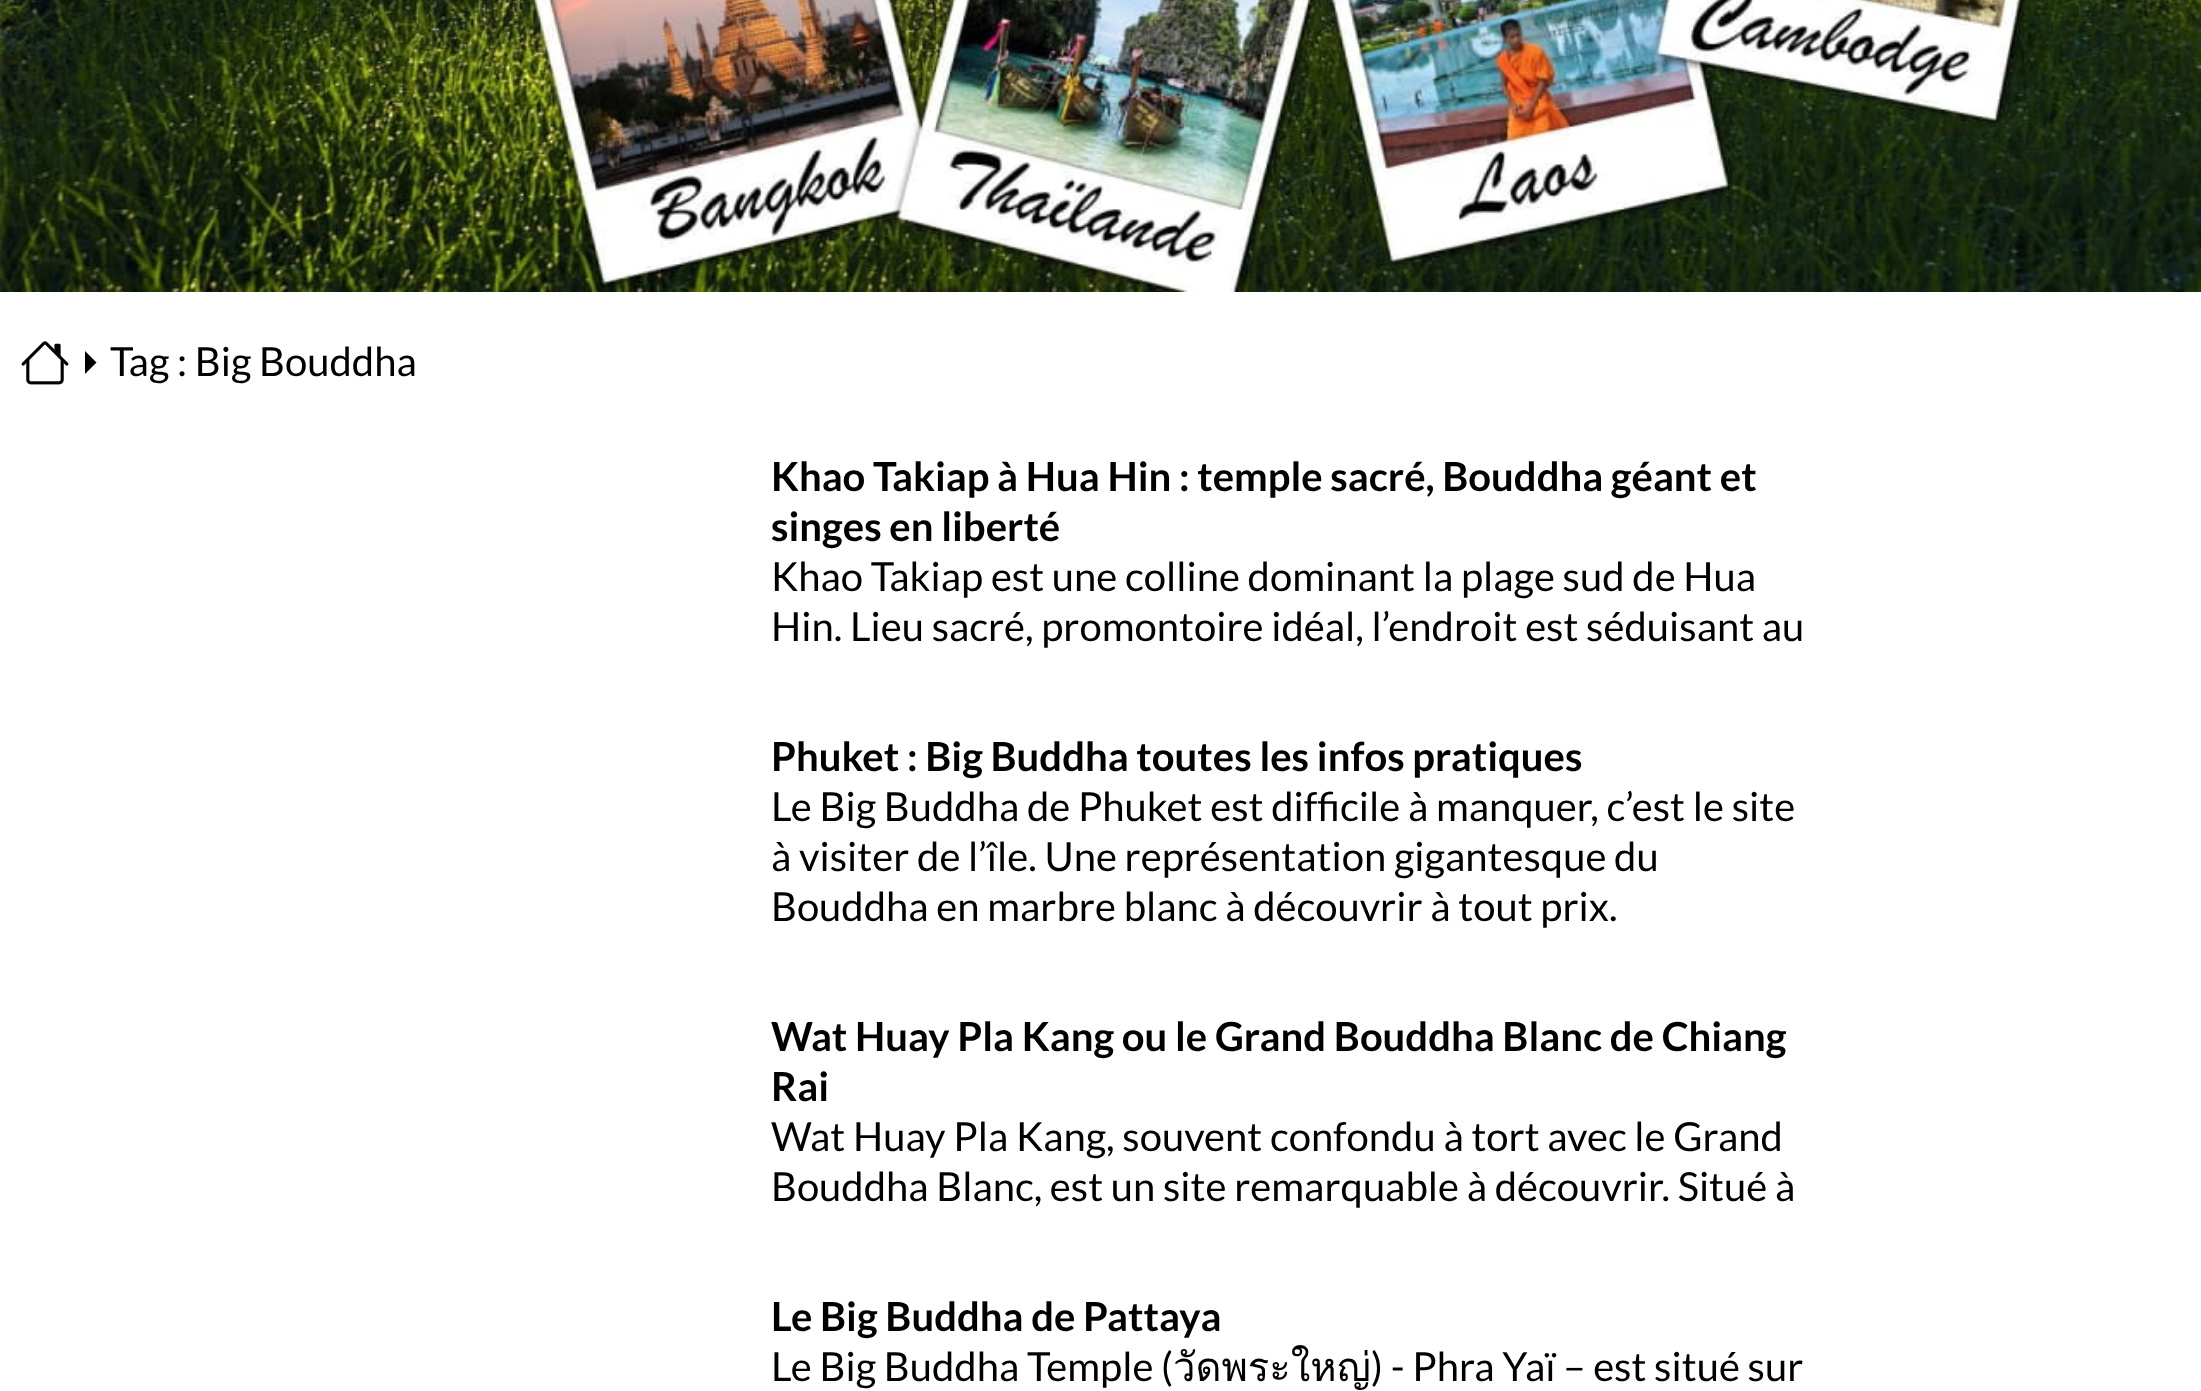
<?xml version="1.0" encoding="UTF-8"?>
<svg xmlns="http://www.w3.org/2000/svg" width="2201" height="1391">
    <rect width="100%" height="100%" fill="#FFFFFF"/>
    <image x="0" y="0" width="2201" height="292" href="img_01.png"/>
    <image x="21" y="341" width="48" height="44" href="img_02.png"/>
    <path d="M 85 351 L 96.5 362.5 L 85 374" fill="#000000"/>
    <text x="110" y="376" font-family="Lato" font-size="40" fill="#000000">Tag : Big Bouddha</text>
    <text font-family="Lato" font-size="40" font-weight="700" fill="#000000">
        <tspan x="771" y="491">Khao Takiap à Hua Hin : temple sacré, Bouddha géant et</tspan>
        <tspan x="771" y="541">singes en liberté</tspan>
    </text>
    <text font-family="Lato" font-size="40" fill="#000000">
        <tspan x="771" y="591">Khao Takiap est une colline dominant la plage sud de Hua</tspan>
        <tspan x="771" y="641">Hin. Lieu sacré, promontoire idéal, l’endroit est séduisant au</tspan>
    </text>
    <text x="771" y="771" font-family="Lato" font-size="40" font-weight="700" fill="#000000">Phuket : Big Buddha toutes les infos pratiques</text>
    <text font-family="Lato" font-size="40" fill="#000000">
        <tspan x="771" y="821">Le Big Buddha de Phuket est difficile à manquer, c’est le site</tspan>
        <tspan x="771" y="871">à visiter de l’île. Une représentation gigantesque du</tspan>
        <tspan x="771" y="921">Bouddha en marbre blanc à découvrir à tout prix.</tspan>
    </text>
    <text font-family="Lato" font-size="40" font-weight="700" fill="#000000">
        <tspan x="771" y="1051">Wat Huay Pla Kang ou le Grand Bouddha Blanc de Chiang</tspan>
        <tspan x="771" y="1101">Rai</tspan>
    </text>
    <text font-family="Lato" font-size="40" fill="#000000">
        <tspan x="771" y="1151">Wat Huay Pla Kang, souvent confondu à tort avec le Grand</tspan>
        <tspan x="771" y="1201">Bouddha Blanc, est un site remarquable à découvrir. Situé à</tspan>
    </text>
    <text x="771" y="1331" font-family="Lato" font-size="40" font-weight="700" fill="#000000">Le Big Buddha de Pattaya</text>
    <text x="771" y="1381" font-family="Lato" font-size="40" fill="#000000">Le Big Buddha Temple (</text>
    <text x="1173" y="1381" font-family="Loma" font-size="40" fill="#000000">วัดพระใหญ่</text>
    <text x="1371" y="1381" font-family="Lato" font-size="40" fill="#000000">) - Phra Yaï – est situé sur</text>
</svg>
